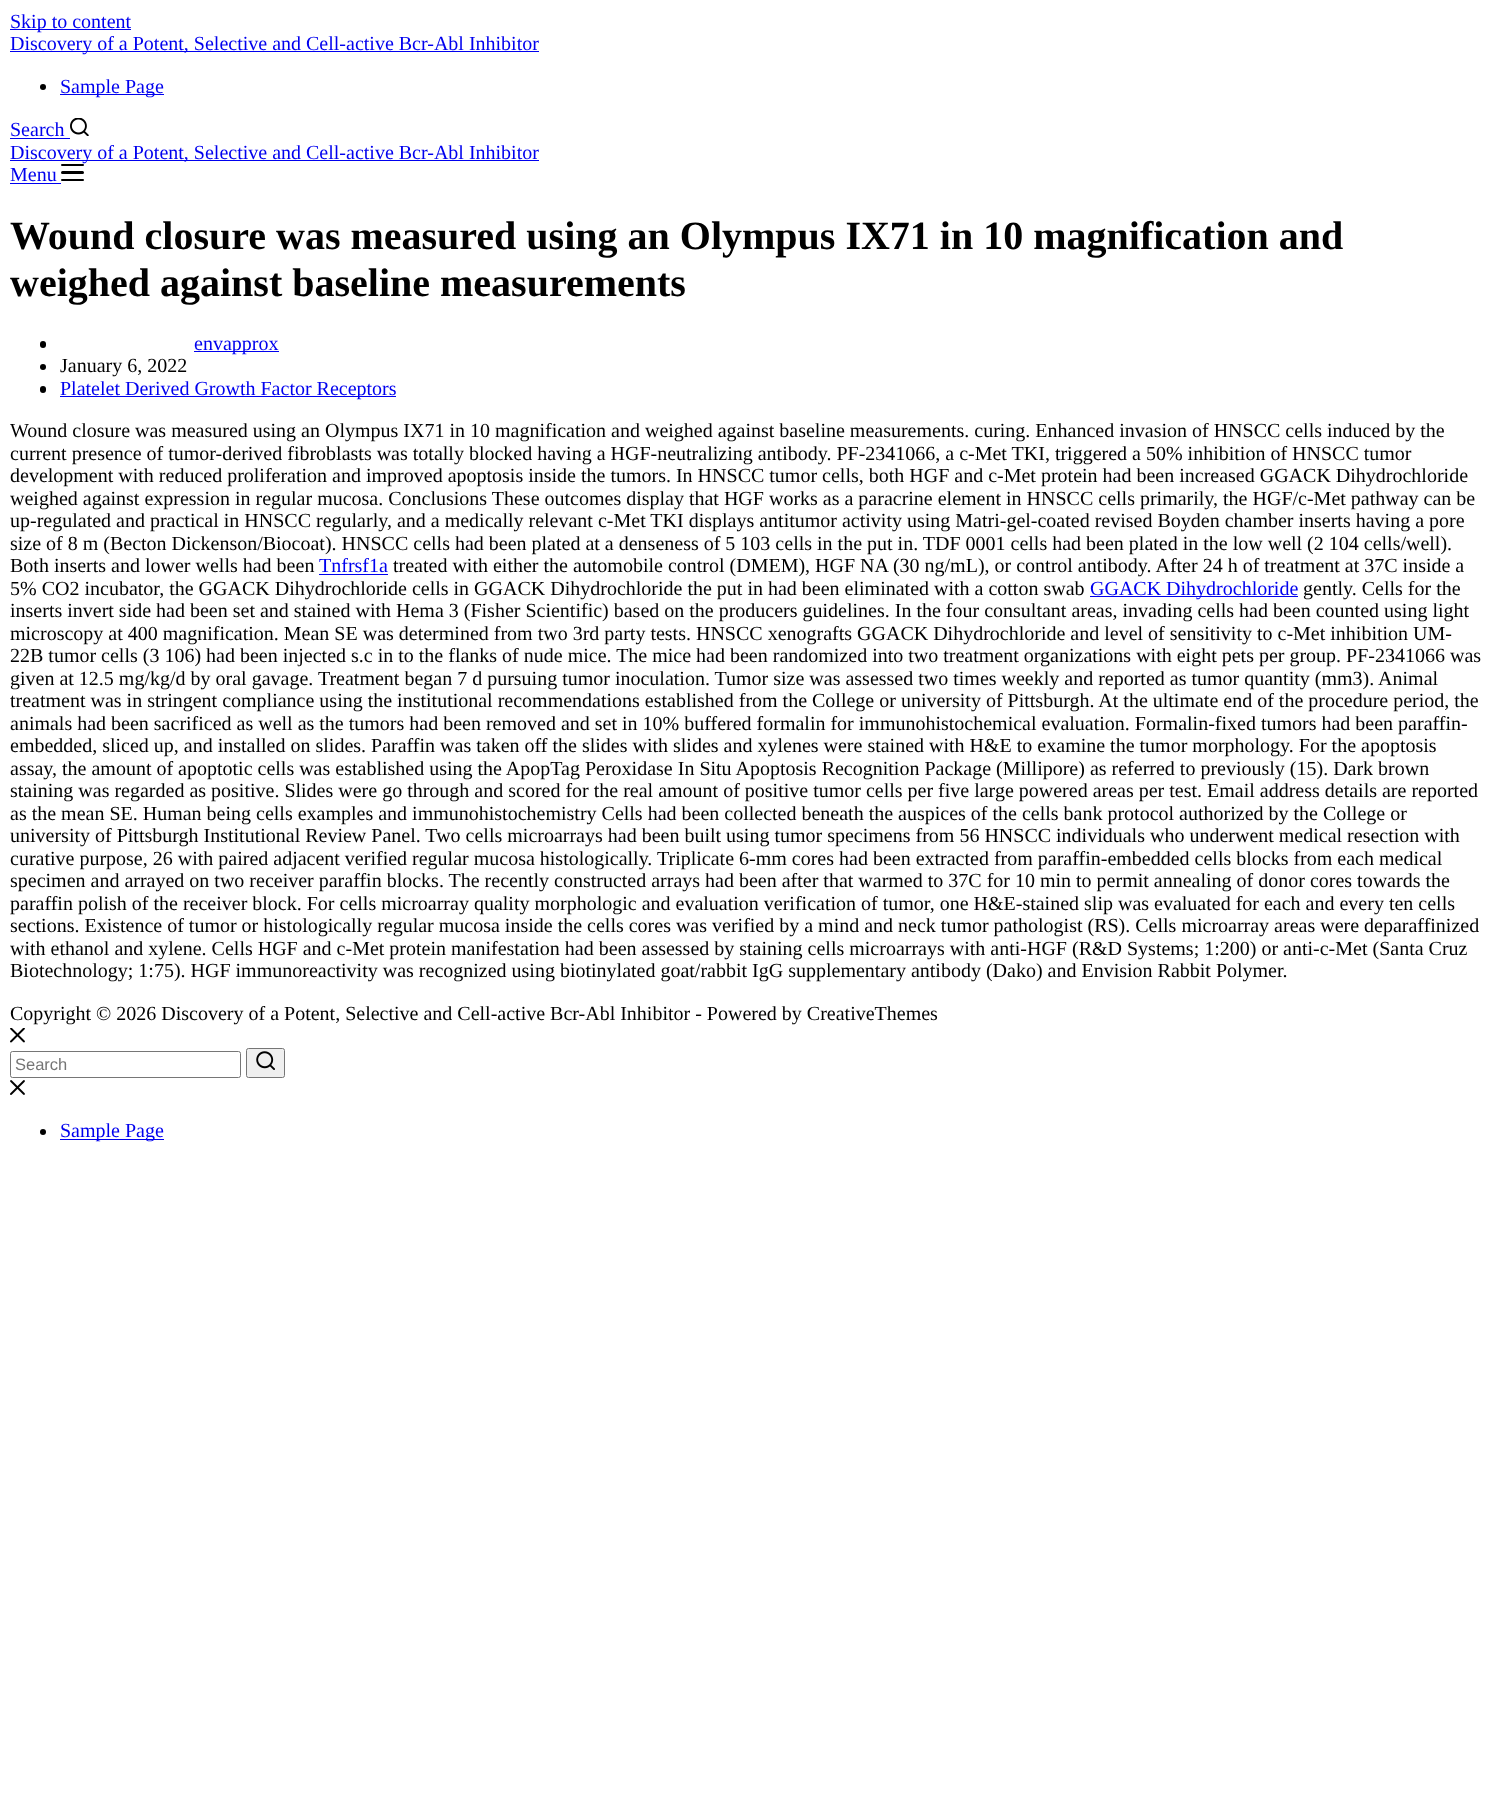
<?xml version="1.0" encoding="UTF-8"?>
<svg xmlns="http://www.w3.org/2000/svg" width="1493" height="1817">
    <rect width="100%" height="100%" fill="#FFFFFF"/>
    <rect x="10" y="29" width="121" height="1" fill="#0000EE"/>
    <text x="10" y="28" font-family="Liberation Serif" font-size="20" fill="#0000EE">Skip to content</text>
    <rect x="10" y="51" width="529" height="1" fill="#0000EE"/>
    <text x="10" y="50" font-family="Liberation Serif" font-size="20" fill="#0000EE">Discovery of a Potent, Selective and Cell-active Bcr-Abl Inhibitor</text>
    <circle cx="43" cy="87" r="3" fill="#000000"/>
    <rect x="60" y="94" width="104" height="1" fill="#0000EE"/>
    <text x="60" y="93" font-family="Liberation Serif" font-size="20" fill="#0000EE">Sample Page</text>
    <text x="10" y="136" font-family="Liberation Serif" font-size="20" fill="#0000EE">Search</text>
    <rect x="10" y="138" width="60" height="1" fill="#0000EE"/>
    <image x="70" y="118" width="19" height="18" href="img_01.png"/>
    <rect x="10" y="160" width="529" height="1" fill="#0000EE"/>
    <text font-family="Liberation Serif" font-size="20" fill="#0000EE">
        <tspan x="10" y="159">Discovery of a Potent, Selective and Cell-active Bcr-Abl Inhibitor</tspan>
        <tspan x="10" y="181">Menu</tspan>
    </text>
    <rect x="10" y="183" width="51" height="1" fill="#0000EE"/>
    <rect x="61" y="164" width="23" height="2" rx="1" fill="#000000"/>
    <rect x="61" y="171" width="23" height="3" rx="1.5" fill="#000000"/>
    <rect x="61" y="179" width="23" height="2" rx="1" fill="#000000"/>
    <text font-family="Liberation Serif" font-size="40" font-weight="700" fill="#000000">
        <tspan x="10" y="249">Wound closure was measured using an Olympus IX71 in 10 magnification and</tspan>
        <tspan x="10" y="296">weighed against baseline measurements</tspan>
    </text>
    <rect x="40" y="341" width="6" height="7" rx="3" fill="#000000"/>
    <rect x="194" y="351" width="85" height="1" fill="#0000EE"/>
    <text x="194" y="350" font-family="Liberation Serif" font-size="20" fill="#0000EE">envapprox</text>
    <circle cx="43" cy="367" r="3" fill="#000000"/>
    <text x="60" y="372" font-family="Liberation Serif" font-size="20" fill="#000000">January 6, 2022</text>
    <rect x="40" y="386" width="6" height="7" rx="3" fill="#000000"/>
    <rect x="60" y="396" width="336" height="1" fill="#0000EE"/>
    <text x="60" y="395" font-family="Liberation Serif" font-size="20" fill="#0000EE">Platelet Derived Growth Factor Receptors</text>
    <text font-family="Liberation Serif" font-size="20" fill="#000000">
        <tspan x="10" y="437">Wound closure was measured using an Olympus IX71 in 10 magnification and weighed against baseline measurements. curing. Enhanced invasion of HNSCC cells induced by the</tspan>
        <tspan x="10" y="460">current presence of tumor-derived fibroblasts was totally blocked having a HGF-neutralizing antibody. PF-2341066, a c-Met TKI, triggered a 50% inhibition of HNSCC tumor</tspan>
        <tspan x="10" y="482">development with reduced proliferation and improved apoptosis inside the tumors. In HNSCC tumor cells, both HGF and c-Met protein had been increased GGACK Dihydrochloride</tspan>
        <tspan x="10" y="505">weighed against expression in regular mucosa. Conclusions These outcomes display that HGF works as a paracrine element in HNSCC cells primarily, the HGF/c-Met pathway can be</tspan>
        <tspan x="10" y="527">up-regulated and practical in HNSCC regularly, and a medically relevant c-Met TKI displays antitumor activity using Matri-gel-coated revised Boyden chamber inserts having a pore</tspan>
        <tspan x="10" y="550">size of 8 m (Becton Dickenson/Biocoat). HNSCC cells had been plated at a denseness of 5 103 cells in the put in. TDF 0001 cells had been plated in the low well (2 104 cells/well).</tspan>
        <tspan x="10" y="572">Both inserts and lower wells had been</tspan>
    </text>
    <text x="319" y="572" font-family="Liberation Serif" font-size="20" fill="#0000EE">Tnfrsf1a</text>
    <rect x="319" y="574" width="69" height="1" fill="#0000EE"/>
    <text x="393" y="572" font-family="Liberation Serif" font-size="20" fill="#000000">treated with either the automobile control (DMEM), HGF NA (30 ng/mL), or control antibody. After 24 h of treatment at 37C inside a</text>
    <text x="10" y="595" font-family="Liberation Serif" font-size="20" fill="#000000">5% CO2 incubator, the GGACK Dihydrochloride cells in GGACK Dihydrochloride the put in had been eliminated with a cotton swab</text>
    <rect x="1090" y="596" width="208" height="1" fill="#0000EE"/>
    <text x="1090" y="595" font-family="Liberation Serif" font-size="20" fill="#0000EE">GGACK Dihydrochloride</text>
    <text x="1303" y="595" font-family="Liberation Serif" font-size="20" fill="#000000">gently. Cells for the</text>
    <text font-family="Liberation Serif" font-size="20" fill="#000000">
        <tspan x="10" y="617">inserts invert side had been set and stained with Hema 3 (Fisher Scientific) based on the producers guidelines. In the four consultant areas, invading cells had been counted using light</tspan>
        <tspan x="10" y="640">microscopy at 400 magnification. Mean SE was determined from two 3rd party tests. HNSCC xenografts GGACK Dihydrochloride and level of sensitivity to c-Met inhibition UM-</tspan>
        <tspan x="10" y="662">22B tumor cells (3 106) had been injected s.c in to the flanks of nude mice. The mice had been randomized into two treatment organizations with eight pets per group. PF-2341066 was</tspan>
        <tspan x="10" y="685">given at 12.5 mg/kg/d by oral gavage. Treatment began 7 d pursuing tumor inoculation. Tumor size was assessed two times weekly and reported as tumor quantity (mm3). Animal</tspan>
        <tspan x="10" y="707">treatment was in stringent compliance using the institutional recommendations established from the College or university of Pittsburgh. At the ultimate end of the procedure period, the</tspan>
        <tspan x="10" y="730">animals had been sacrificed as well as the tumors had been removed and set in 10% buffered formalin for immunohistochemical evaluation. Formalin-fixed tumors had been paraffin-</tspan>
        <tspan x="10" y="752">embedded, sliced up, and installed on slides. Paraffin was taken off the slides with slides and xylenes were stained with H&amp;E to examine the tumor morphology. For the apoptosis</tspan>
        <tspan x="10" y="775">assay, the amount of apoptotic cells was established using the ApopTag Peroxidase In Situ Apoptosis Recognition Package (Millipore) as referred to previously (15). Dark brown</tspan>
        <tspan x="10" y="797">staining was regarded as positive. Slides were go through and scored for the real amount of positive tumor cells per five large powered areas per test. Email address details are reported</tspan>
        <tspan x="10" y="820">as the mean SE. Human being cells examples and immunohistochemistry Cells had been collected beneath the auspices of the cells bank protocol authorized by the College or</tspan>
        <tspan x="10" y="842">university of Pittsburgh Institutional Review Panel. Two cells microarrays had been built using tumor specimens from 56 HNSCC individuals who underwent medical resection with</tspan>
        <tspan x="10" y="865">curative purpose, 26 with paired adjacent verified regular mucosa histologically. Triplicate 6-mm cores had been extracted from paraffin-embedded cells blocks from each medical</tspan>
        <tspan x="10" y="887">specimen and arrayed on two receiver paraffin blocks. The recently constructed arrays had been after that warmed to 37C for 10 min to permit annealing of donor cores towards the</tspan>
        <tspan x="10" y="910">paraffin polish of the receiver block. For cells microarray quality morphologic and evaluation verification of tumor, one H&amp;E-stained slip was evaluated for each and every ten cells</tspan>
        <tspan x="10" y="932">sections. Existence of tumor or histologically regular mucosa inside the cells cores was verified by a mind and neck tumor pathologist (RS). Cells microarray areas were deparaffinized</tspan>
        <tspan x="10" y="955">with ethanol and xylene. Cells HGF and c-Met protein manifestation had been assessed by staining cells microarrays with anti-HGF (R&amp;D Systems; 1:200) or anti-c-Met (Santa Cruz</tspan>
        <tspan x="10" y="977">Biotechnology; 1:75). HGF immunoreactivity was recognized using biotinylated goat/rabbit IgG supplementary antibody (Dako) and Envision Rabbit Polymer.</tspan>
    </text>
    <text x="10" y="1020" font-family="Liberation Serif" font-size="20" fill="#000000">Copyright © 2026 Discovery of a Potent, Selective and Cell-active Bcr-Abl Inhibitor - Powered by CreativeThemes</text>
    <image x="10" y="1028" width="15" height="15" href="img_02.png"/>
    <rect x="10.5" y="1051.5" width="230" height="26" rx="2" fill="none" stroke="#767676"/>
    <text x="15" y="1070" font-family="Liberation Sans" font-size="16.5" fill="#757575">Search</text>
    <rect x="246.5" y="1048.5" width="38" height="29" rx="2" fill="#EFEFEF" stroke="#767676"/>
    <image x="256" y="1051" width="19" height="19" href="img_03.png"/>
    <image x="10" y="1080" width="15" height="15" href="img_04.png"/>
    <circle cx="43" cy="1132" r="3" fill="#000000"/>
    <rect x="60" y="1139" width="104" height="1" fill="#0000EE"/>
    <text x="60" y="1137" font-family="Liberation Serif" font-size="20" fill="#0000EE">Sample Page</text>
</svg>
